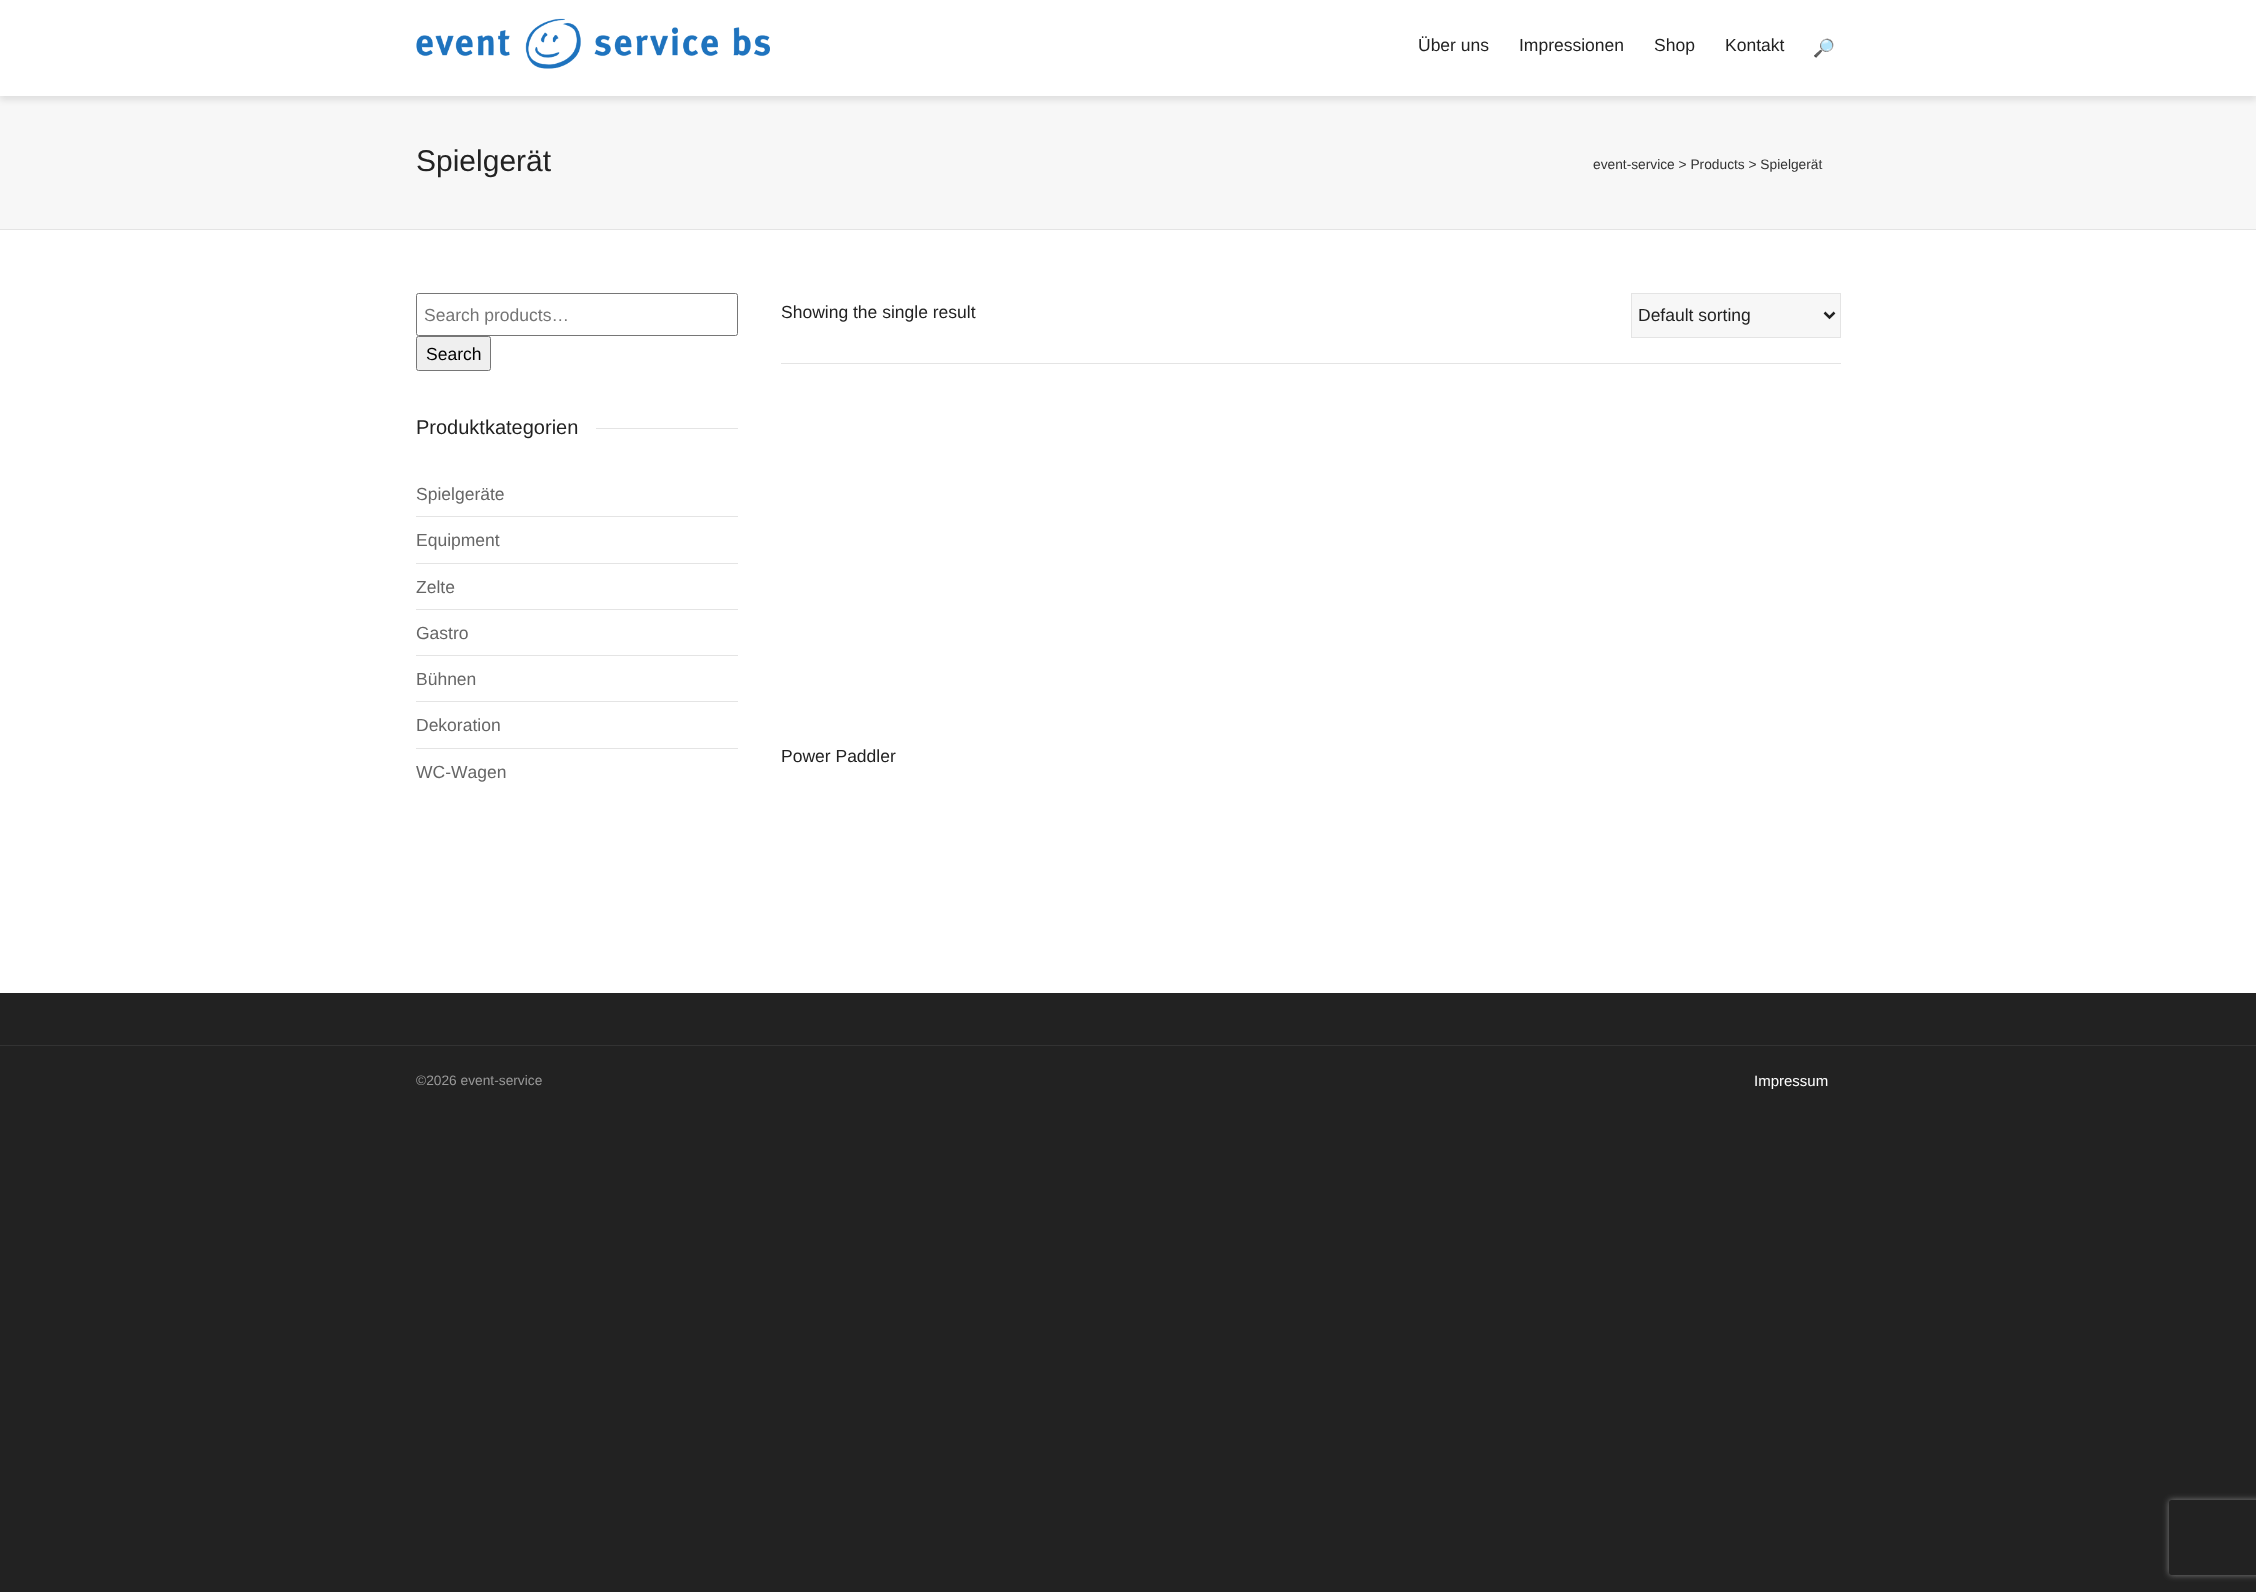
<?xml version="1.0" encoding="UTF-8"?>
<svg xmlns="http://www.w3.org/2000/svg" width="2256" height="1592">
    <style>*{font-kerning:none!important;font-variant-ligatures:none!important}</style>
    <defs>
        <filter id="blur1" x="-50%" y="-200%" width="200%" height="500%"><feGaussianBlur stdDeviation="3"/></filter>
        <clipPath id="clip1"><path d="M 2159 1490 H 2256 V 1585 H 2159 Z M 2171.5 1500 H 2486.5 C 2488 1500 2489 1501 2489 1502.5 V 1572.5 C 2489 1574 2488 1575 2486.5 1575 H 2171.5 C 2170 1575 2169 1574 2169 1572.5 V 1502.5 C 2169 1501 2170 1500 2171.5 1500 Z" clip-rule="evenodd"/></clipPath>
    </defs>
    <rect width="100%" height="100%" fill="#222222"/>
    <rect x="0" y="96" width="2256" height="133" fill="#F7F7F7"/>
    <rect x="0" y="4" width="2256" height="96" fill="#000000" fill-opacity="0.1" filter="url(#blur1)"/>
    <rect x="0" y="0" width="2256" height="96" fill="#FFFFFF"/>
    <image x="416" y="18" width="354" height="51" href="img_01.png"/>
    <text x="1418" y="51" font-family="Liberation Sans" font-size="17.5" fill="#222222">Über uns</text>
    <text x="1519" y="51" font-family="Liberation Sans" font-size="17.5" fill="#222222">Impressionen</text>
    <text x="1654" y="51" font-family="Liberation Sans" font-size="17.5" fill="#222222">Shop</text>
    <text x="1725" y="51" font-family="Liberation Sans" font-size="17.5" fill="#222222">Kontakt</text>
    <text x="1813" y="54" font-family="Noto Color Emoji" font-size="17.5" fill="#222222">🔎</text>
    <rect x="0" y="230" width="2256" height="763" fill="#FFFFFF"/>
    <rect x="0" y="229" width="2256" height="1" fill="#E4E4E4"/>
    <text x="416" y="171" font-family="Liberation Sans" font-size="30" fill="#222222">Spielgerät</text>
    <text x="1593" y="169" font-family="Liberation Sans" font-size="13.75" fill="#333333">event-service &gt; Products &gt; Spielgerät</text>
    <rect x="416.5" y="293.5" width="321" height="42" rx="2" fill="none" stroke="#767676"/>
    <text x="424" y="321" font-family="Liberation Sans" font-size="17.5" fill="#757575">Search products…</text>
    <rect x="416.5" y="336.5" width="74" height="34" rx="2" fill="#EFEFEF" stroke="#767676"/>
    <text x="426" y="360" font-family="Liberation Sans" font-size="17.5" fill="#000000">Search</text>
    <text x="416" y="434" font-family="Liberation Sans" font-size="20" fill="#222222">Produktkategorien</text>
    <rect x="596" y="428" width="142" height="1" fill="#E4E4E4"/>
    <text x="416" y="500" font-family="Liberation Sans" font-size="17.5" fill="#666666">Spielgeräte</text>
    <rect x="416" y="516" width="322" height="1" fill="#E4E4E4"/>
    <text x="416" y="546" font-family="Liberation Sans" font-size="17.5" fill="#666666">Equipment</text>
    <rect x="416" y="563" width="322" height="1" fill="#E4E4E4"/>
    <text x="416" y="593" font-family="Liberation Sans" font-size="17.5" fill="#666666">Zelte</text>
    <rect x="416" y="609" width="322" height="1" fill="#E4E4E4"/>
    <text x="416" y="639" font-family="Liberation Sans" font-size="17.5" fill="#666666">Gastro</text>
    <rect x="416" y="655" width="322" height="1" fill="#E4E4E4"/>
    <text x="416" y="685" font-family="Liberation Sans" font-size="17.5" fill="#666666">Bühnen</text>
    <rect x="416" y="701" width="322" height="1" fill="#E4E4E4"/>
    <text x="416" y="731" font-family="Liberation Sans" font-size="17.5" fill="#666666">Dekoration</text>
    <rect x="416" y="748" width="322" height="1" fill="#E4E4E4"/>
    <text x="416" y="778" font-family="Liberation Sans" font-size="17.5" fill="#666666">WC-Wagen</text>
    <text x="781" y="318" font-family="Liberation Sans" font-size="17.5" fill="#222222">Showing the single result</text>
    <rect x="1631.5" y="293.5" width="209" height="44" fill="#F7F7F7" stroke="#E4E4E4"/>
    <path d="M 1824.5 312.5 L 1829.5 317.5 L 1834.5 312.5" fill="none" stroke="#222222" stroke-width="2.5"/>
    <text x="1638" y="321" font-family="Liberation Sans" font-size="17.5" fill="#222222">Default sorting</text>
    <rect x="781" y="363" width="1060" height="1" fill="#E4E4E4"/>
    <text x="781" y="762" font-family="Liberation Sans" font-size="17.5" fill="#222222">Power Paddler</text>
    <rect x="0" y="1045" width="2256" height="1" fill="#333333"/>
    <text x="416" y="1085" font-family="Liberation Sans" font-size="13.75" fill="#999999">©2026 event-service</text>
    <text x="1754" y="1086" font-family="Liberation Sans" font-size="15" fill="#FFFFFF">Impressum</text>
    <g clip-path="url(#clip1)">
        <rect x="2169" y="1500" width="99" height="75" rx="2.5" fill="#808080" filter="url(#blur1)"/>
    </g>
</svg>
